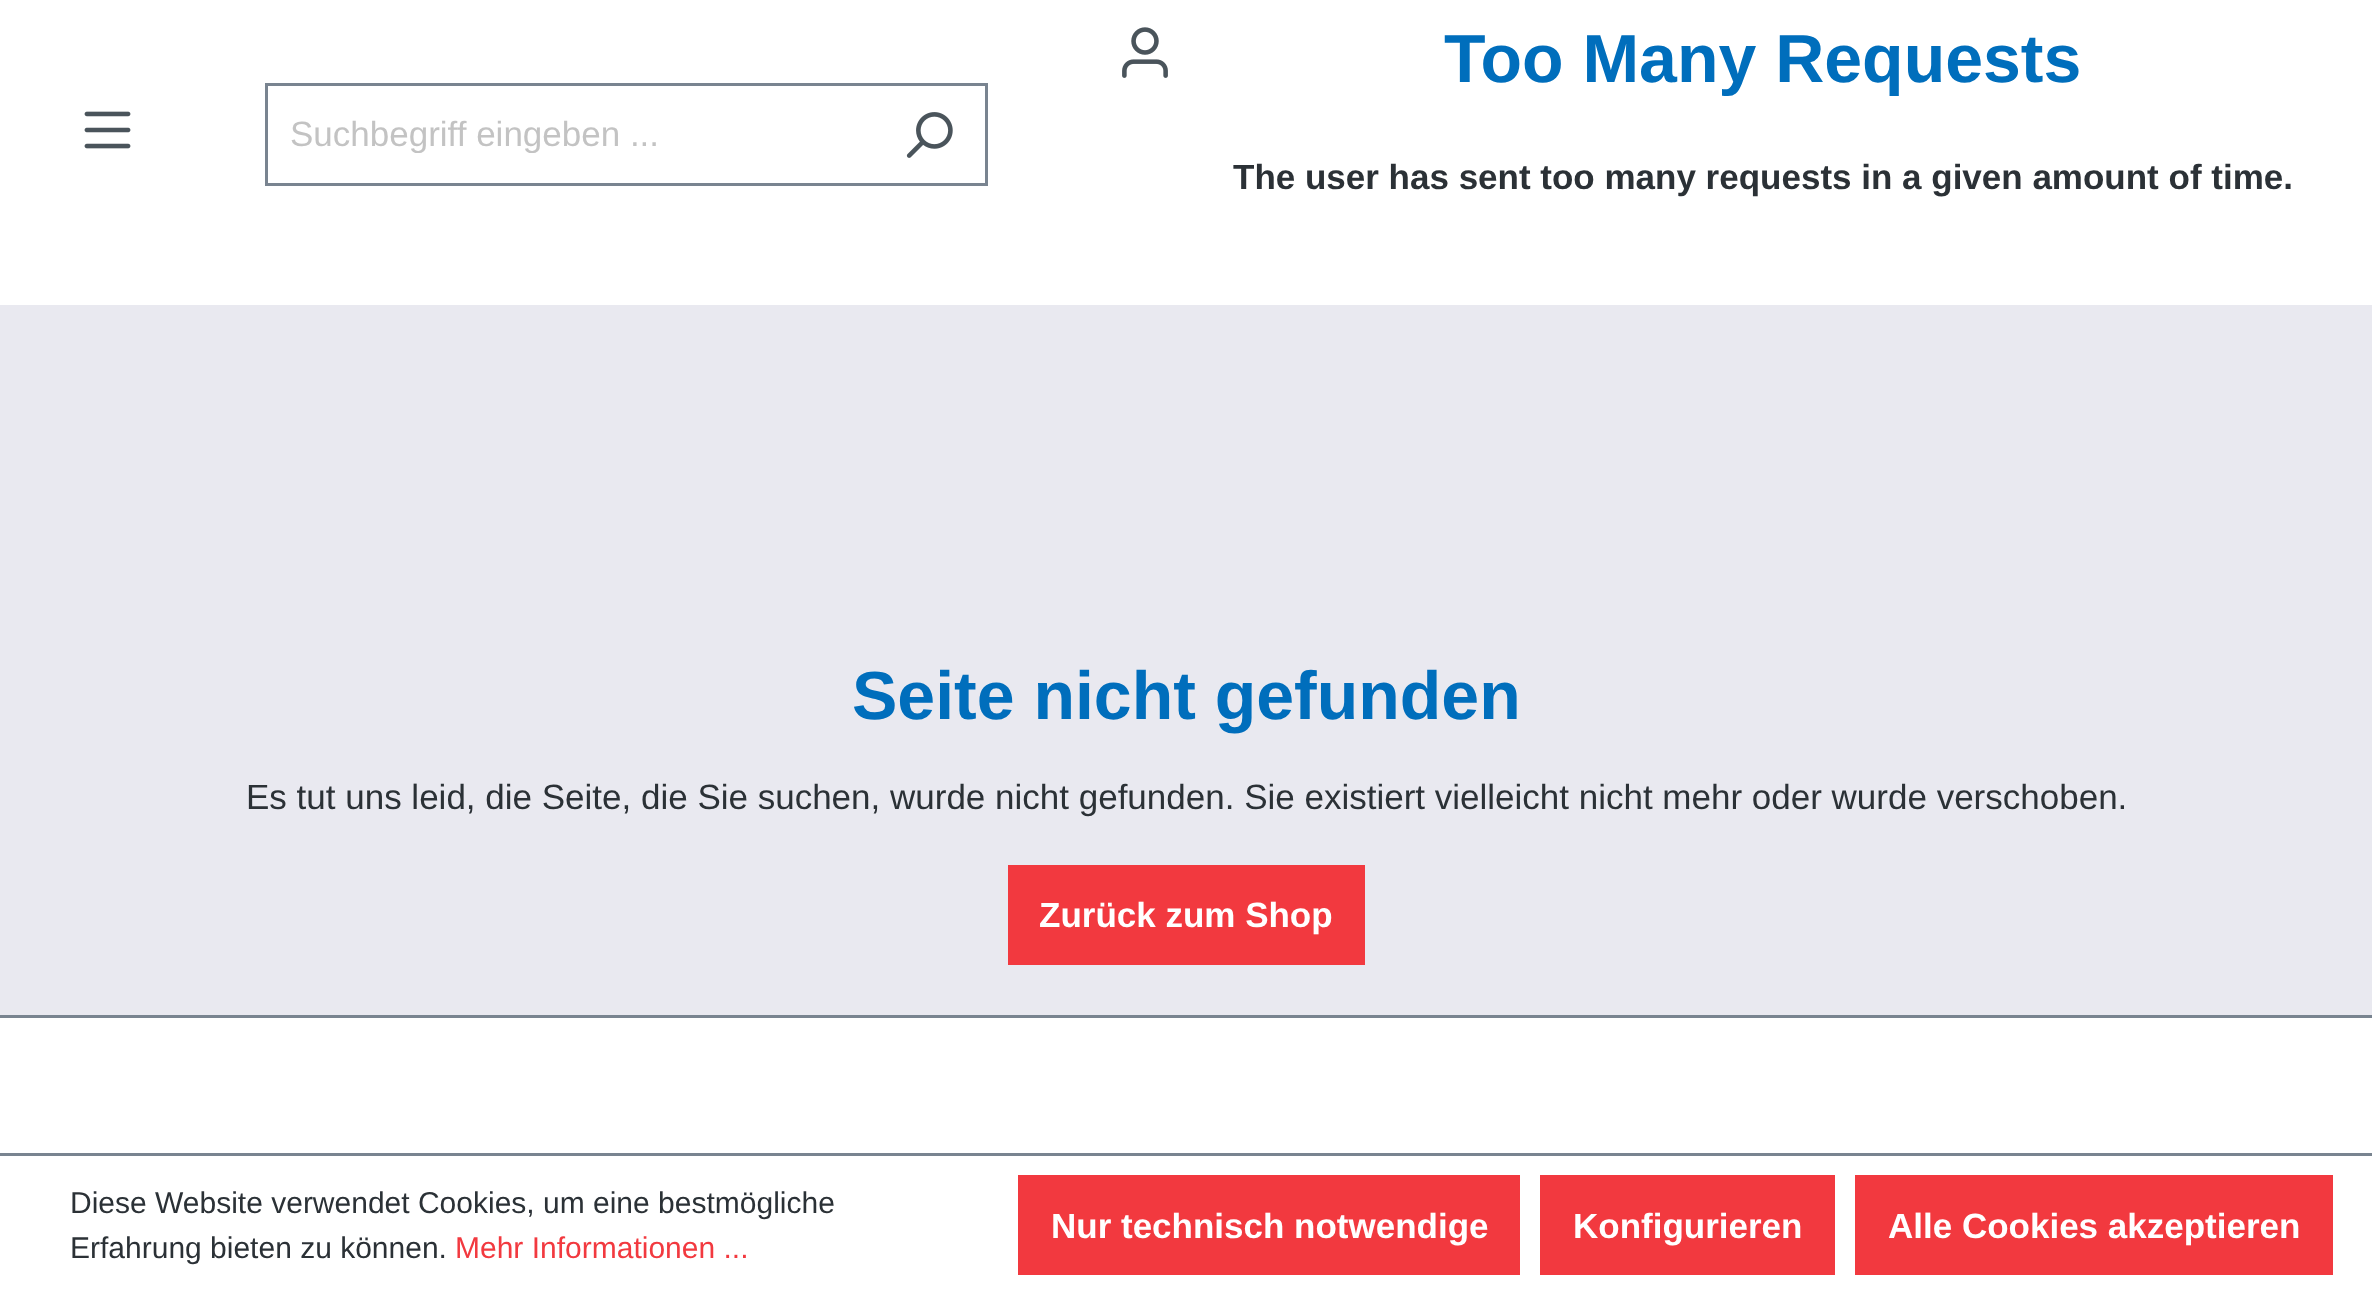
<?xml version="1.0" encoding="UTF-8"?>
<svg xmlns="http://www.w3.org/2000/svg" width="2372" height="1295">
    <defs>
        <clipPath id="clip1"><rect x="290" y="113" width="560" height="40"/></clipPath>
    </defs>
    <rect width="100%" height="100%" fill="#FFFFFF"/>
    <image x="84" y="111" width="47" height="38" href="img_01.png"/>
    <rect x="265" y="83" width="723" height="3" fill="#798490"/>
    <rect x="265" y="183" width="608" height="3" fill="#798490"/>
    <rect x="265" y="83" width="3" height="102" fill="#798490"/>
    <g clip-path="url(#clip1)">
        <text x="290" y="146" font-family="Liberation Sans" font-size="35" fill="#C3C3C3">Suchbegriff eingeben ...</text>
    </g>
    <rect x="985" y="83" width="3" height="102" fill="#798490"/>
    <rect x="870" y="183" width="118" height="3" fill="#798490"/>
    <image x="906" y="112" width="47" height="46" href="img_02.png"/>
    <image x="1122" y="27" width="46" height="51" href="img_03.png"/>
    <text x="1444" y="82" font-family="Liberation Sans" font-size="68" font-weight="700" fill="#006EBC">Too Many Requests</text>
    <text x="1233" y="189" font-family="Liberation Sans" font-size="35" font-weight="700" fill="#2B3136">The user has sent too many requests in a given amount of time.</text>
    <rect x="0" y="305" width="2372" height="710" fill="#E9E9F0"/>
    <text x="852" y="719" font-family="Liberation Sans" font-size="68" font-weight="700" fill="#006EBC">Seite nicht gefunden</text>
    <text x="246" y="809" font-family="Liberation Sans" font-size="35" fill="#2B3136">Es tut uns leid, die Seite, die Sie suchen, wurde nicht gefunden. Sie existiert vielleicht nicht mehr oder wurde verschoben.</text>
    <rect x="1008" y="865" width="357" height="100" fill="#F2393F"/>
    <text x="1039" y="927" font-family="Liberation Sans" font-size="35" font-weight="700" fill="#FFFFFF">Zurück zum Shop</text>
    <rect x="0" y="1015" width="2372" height="3" fill="#798490"/>
    <rect x="0" y="1153" width="2372" height="3" fill="#798490"/>
    <text font-family="Liberation Sans" font-size="30" fill="#2B3136">
        <tspan x="70" y="1213">Diese Website verwendet Cookies, um eine bestmögliche</tspan>
        <tspan x="70" y="1258">Erfahrung bieten zu können.</tspan>
    </text>
    <text x="455" y="1258" font-family="Liberation Sans" font-size="30" fill="#F2393F">Mehr Informationen ...</text>
    <rect x="1018" y="1175" width="502" height="100" fill="#F2393F"/>
    <text x="1051" y="1238" font-family="Liberation Sans" font-size="35" font-weight="700" fill="#FFFFFF">Nur technisch notwendige</text>
    <rect x="1540" y="1175" width="295" height="100" fill="#F2393F"/>
    <text x="1573" y="1238" font-family="Liberation Sans" font-size="35" font-weight="700" fill="#FFFFFF">Konfigurieren</text>
    <rect x="1855" y="1175" width="478" height="100" fill="#F2393F"/>
    <text x="1888" y="1238" font-family="Liberation Sans" font-size="35" font-weight="700" fill="#FFFFFF">Alle Cookies akzeptieren</text>
</svg>
